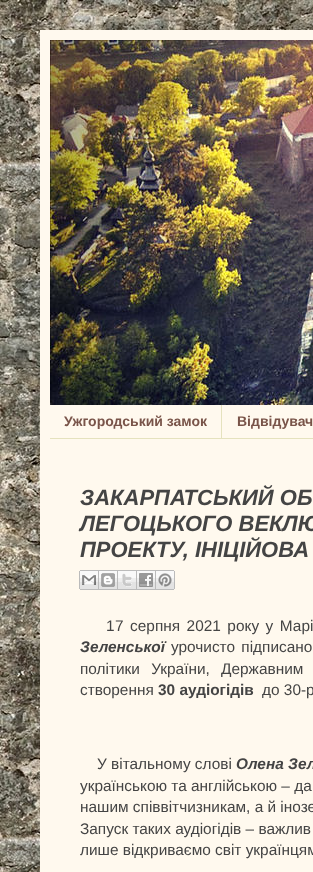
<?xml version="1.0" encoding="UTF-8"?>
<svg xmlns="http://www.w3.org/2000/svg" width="313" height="872">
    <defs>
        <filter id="blur1" x="-50%" y="-200%" width="200%" height="500%"><feGaussianBlur stdDeviation="20"/></filter>
    </defs>
    <rect width="100%" height="100%" fill="#FFFFFF"/>
    <image x="0" y="0" width="313" height="872" href="img_01.png"/>
    <rect x="40" y="30" width="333" height="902" fill="#000000" fill-opacity="0.15" filter="url(#blur1)"/>
    <rect x="40" y="30" width="273" height="842" fill="#FFF9EE"/>
    <image x="50" y="40" width="263" height="365" href="img_02.png"/>
    <rect x="50" y="438" width="263" height="1" fill="#E5E2BE"/>
    <rect x="221" y="405" width="1" height="33" fill="#E5E2BE"/>
    <text x="64" y="426" font-family="Liberation Sans" font-size="14" font-weight="700" fill="#795449">Ужгородський замок</text>
    <text x="237" y="426" font-family="Liberation Sans" font-size="14" font-weight="700" fill="#795449">Відвідувач</text>
    <text font-family="Liberation Sans" font-size="22" font-weight="700" font-style="italic" fill="#444444">
        <tspan x="80" y="505">ЗАКАРПАТСЬКИЙ ОБ</tspan>
        <tspan x="80" y="531">ЛЕГОЦЬКОГО ВЕКЛЮ</tspan>
        <tspan x="80" y="557">ПРОЕКТУ, ІНІЦІЙОВА</tspan>
    </text>
    <image x="79" y="570" width="20" height="20" href="img_03.png"/>
    <image x="99" y="570" width="19" height="20" href="img_04.png"/>
    <image x="118" y="570" width="19" height="20" href="img_05.png"/>
    <image x="137" y="570" width="19" height="20" href="img_06.png"/>
    <image x="156" y="570" width="19" height="20" href="img_07.png"/>
    <text x="106" y="631" font-family="Liberation Sans" font-size="15.4" fill="#444444">1</text>
    <text x="115" y="631" word-spacing="2.25" font-family="Liberation Sans" font-size="15.4" fill="#444444">7 серпня 2021 року у Марі</text>
    <text x="80" y="652" font-family="Liberation Sans" font-size="15.4" font-weight="700" font-style="italic" fill="#444444">Зеленської</text>
    <text x="171" y="652" word-spacing="2" font-family="Liberation Sans" font-size="15.4" fill="#444444">урочисто підписано</text>
    <text font-family="Liberation Sans" font-size="15.4" fill="#444444">
        <tspan x="80" y="674" word-spacing="7">політики України, Державним</tspan>
        <tspan x="80" y="695">створення</tspan>
    </text>
    <text x="158" y="695" font-family="Liberation Sans" font-size="15.4" font-weight="700" fill="#444444">30 аудіогідів</text>
    <text x="262" y="695" font-family="Liberation Sans" font-size="15.4" fill="#444444">до 30-р</text>
    <text x="97" y="769" font-family="Liberation Sans" font-size="15.4" fill="#444444">У вітальному слові</text>
    <text x="236" y="769" font-family="Liberation Sans" font-size="15.4" font-weight="700" font-style="italic" fill="#444444">Олена Зел</text>
    <text font-family="Liberation Sans" font-size="15.4" fill="#444444">
        <tspan x="80" y="791">українською та англійською – да</tspan>
        <tspan x="80" y="812">нашим співвітчизникам, а й інозе</tspan>
        <tspan x="80" y="834">Запуск таких аудіогідів – важлив</tspan>
        <tspan x="80" y="855">лише відкриваємо світ українцям</tspan>
    </text>
</svg>
